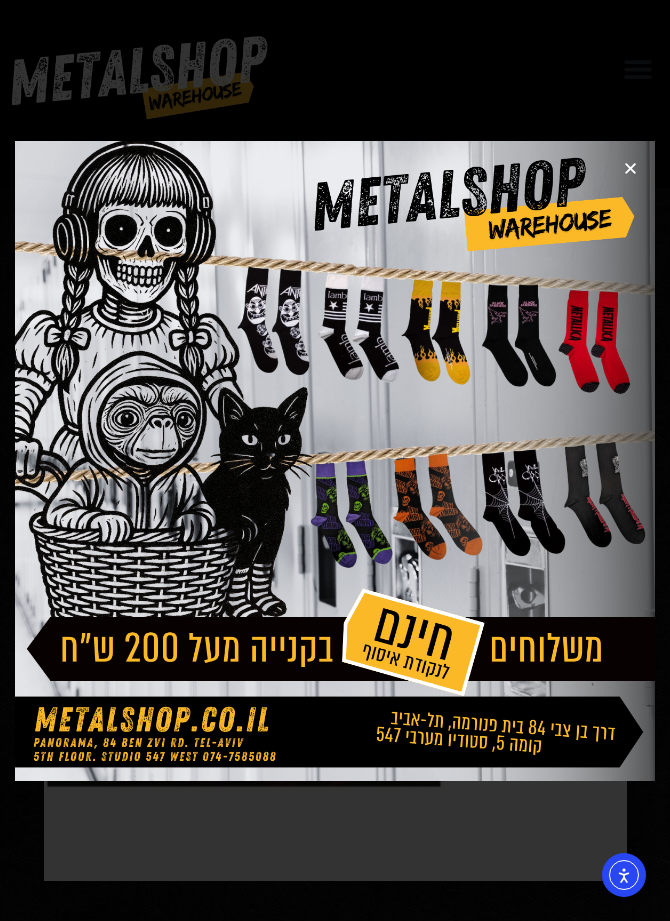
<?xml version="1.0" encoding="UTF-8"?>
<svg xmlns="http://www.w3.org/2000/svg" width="670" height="921">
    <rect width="100%" height="100%" fill="#FFFFFF"/>
    <image x="0" y="188" width="670" height="733" href="img_01.png"/>
    <rect x="0" y="0" width="670" height="188" fill="#000000"/>
    <image x="11" y="36" width="257" height="84" href="img_02.png"/>
    <image x="624" y="60" width="28" height="19" href="img_03.png"/>
    <image x="15" y="141" width="640" height="640" href="img_04.png"/>
    <image x="625" y="163" width="11" height="11" href="img_05.png"/>
    <image x="44" y="781" width="583" height="100" href="img_06.png"/>
    <circle cx="624" cy="875" r="22" fill="#2847F3"/>
    <circle cx="624" cy="875" r="14.5" fill="none" stroke="#FFFFFF"/>
    <image x="618" y="868" width="12" height="15" href="img_07.png"/>
</svg>
